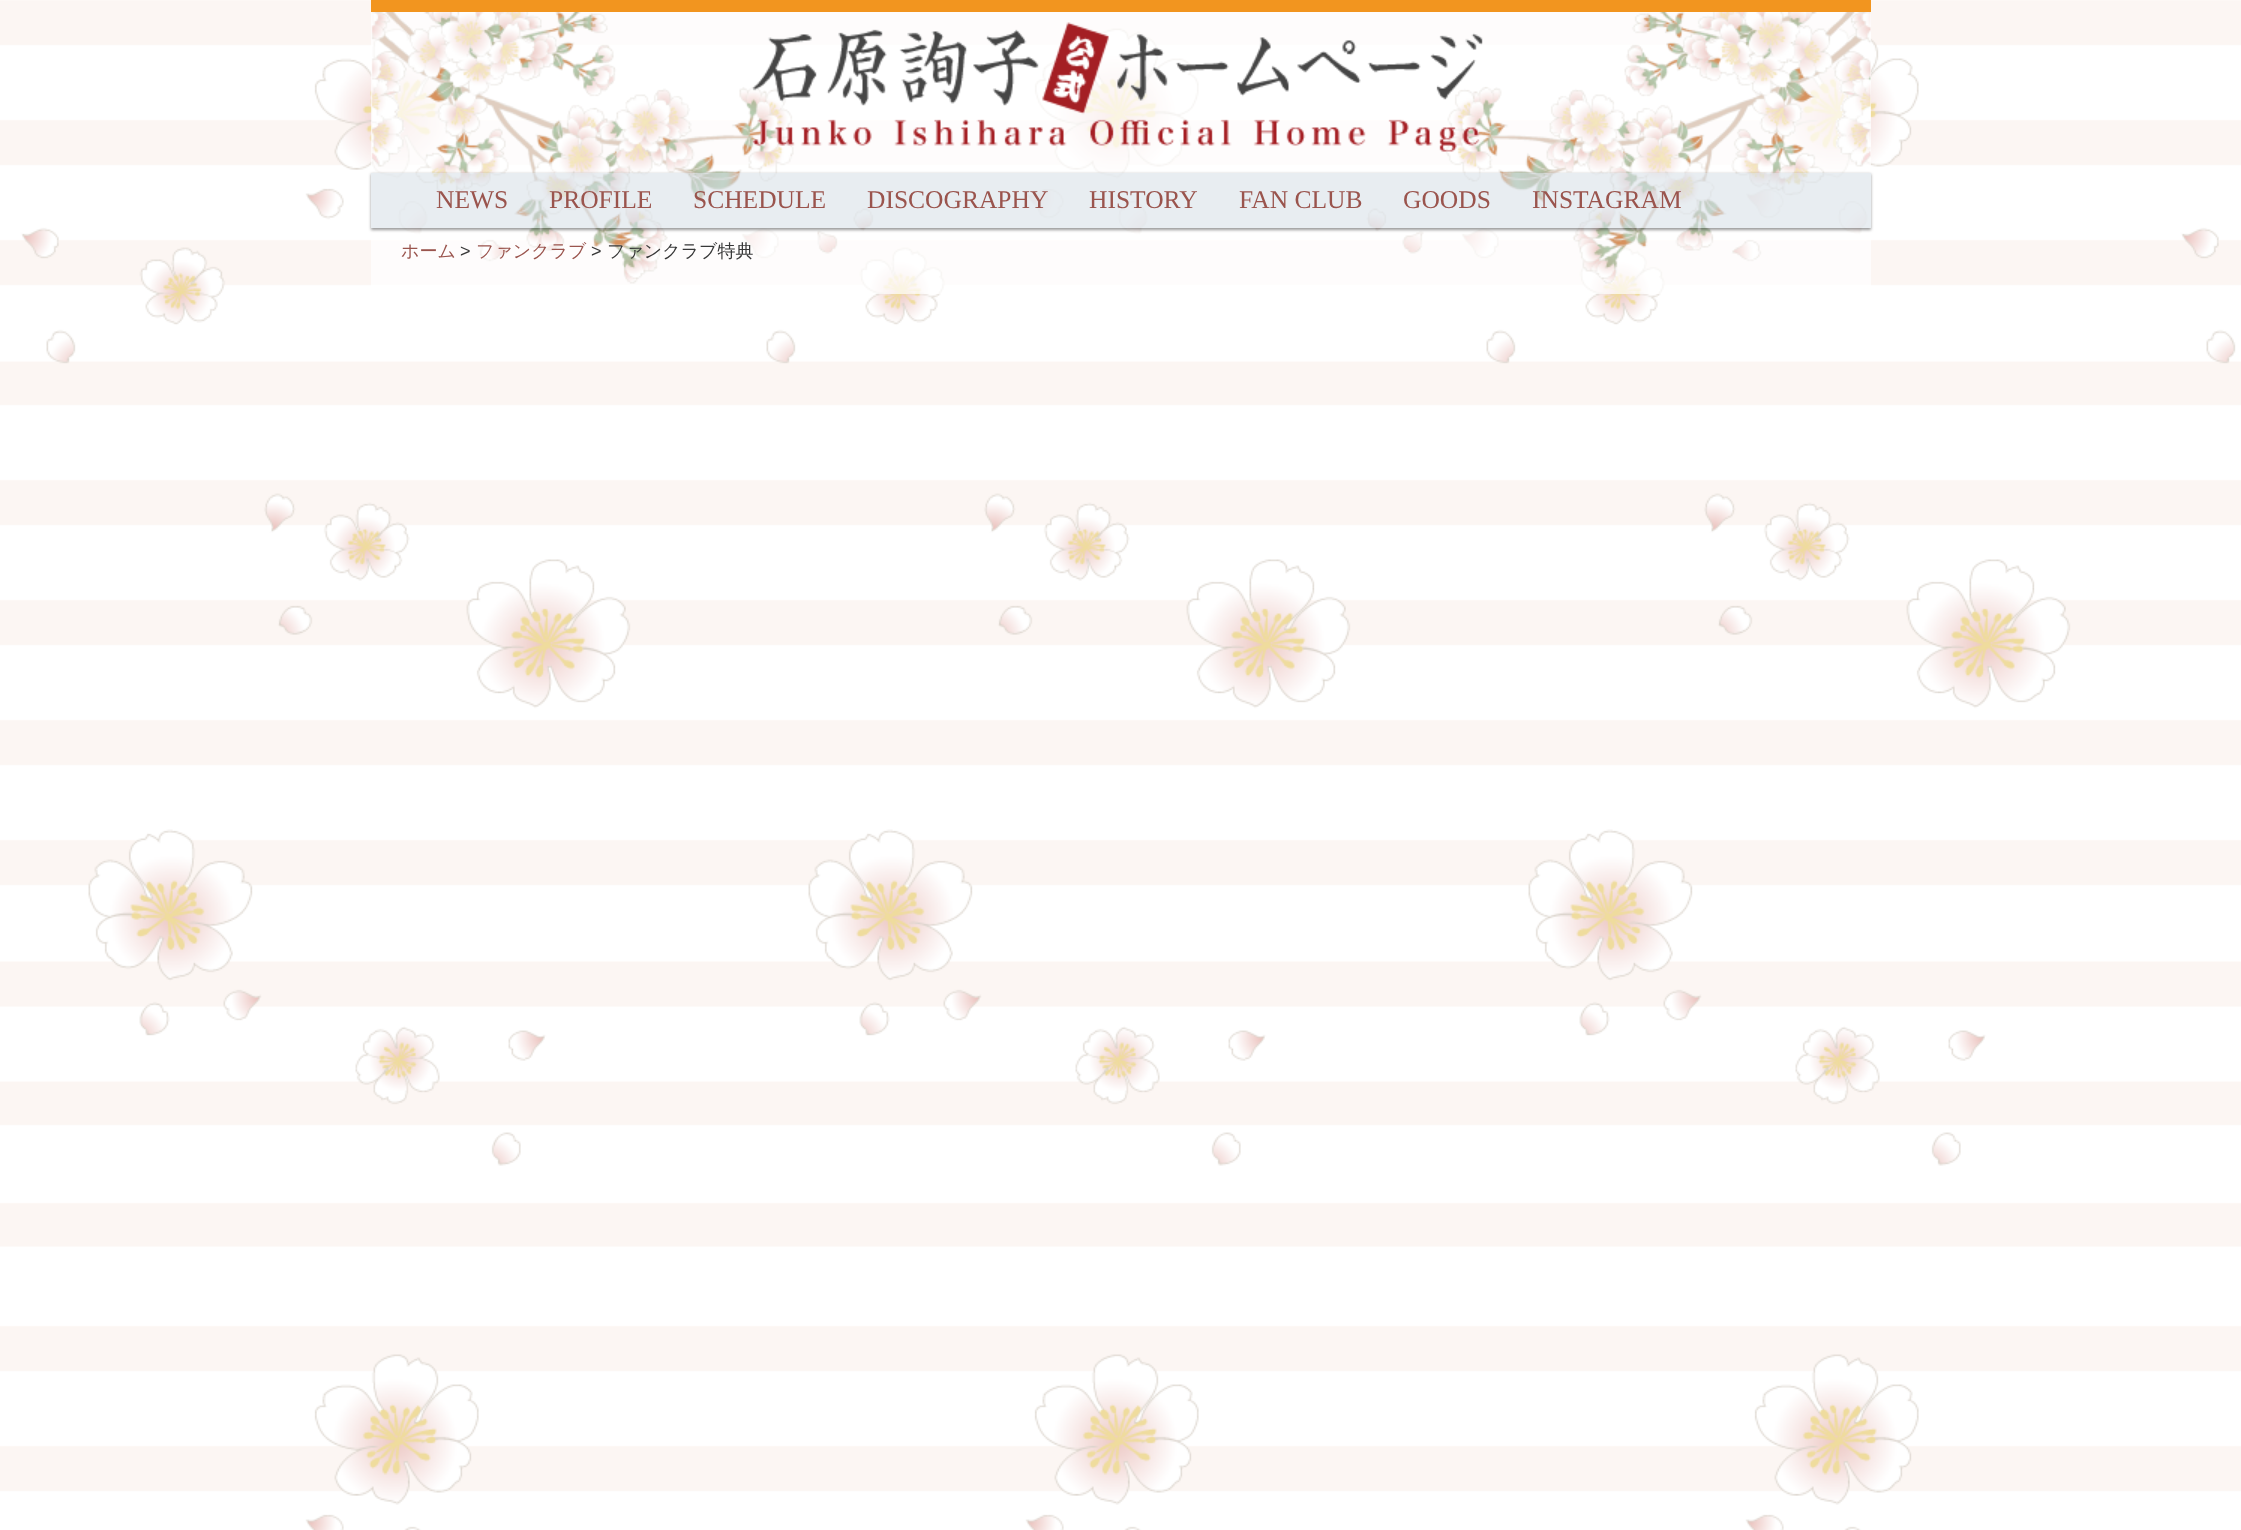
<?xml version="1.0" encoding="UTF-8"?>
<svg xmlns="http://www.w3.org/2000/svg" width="2241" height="1530">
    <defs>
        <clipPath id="clip1"><path d="M 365 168 H 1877 V 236 H 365 Z M 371 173 H 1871 V 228 H 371 Z" clip-rule="evenodd"/></clipPath>
        <filter id="blur1" x="-50%" y="-200%" width="200%" height="500%"><feGaussianBlur stdDeviation="1.5"/></filter>
    </defs>
    <rect width="100%" height="100%" fill="#FFFFFF"/>
    <image x="0" y="0" width="2241" height="1530" href="img_01.png"/>
    <rect x="371" y="12" width="1500" height="282" fill="#FFFFFF" fill-opacity="0.7"/>
    <rect x="371" y="0" width="1500" height="12" fill="#F2951F"/>
    <image x="371" y="12" width="1500" height="272" href="img_02.png"/>
    <image x="752" y="22" width="731" height="130" href="img_03.png"/>
    <g clip-path="url(#clip1)">
        <rect x="371" y="174" width="1500" height="56" fill="#000000" fill-opacity="0.4" filter="url(#blur1)"/>
    </g>
    <rect x="371" y="173" width="1500" height="55" fill="#D2DCE4" fill-opacity="0.5"/>
    <text x="436" y="208" font-family="Liberation Serif" font-size="25.5" fill="#9A544D">NEWS</text>
    <text x="549" y="208" font-family="Liberation Serif" font-size="25.5" fill="#9A544D">PROFILE</text>
    <text x="693" y="208" font-family="Liberation Serif" font-size="25.5" fill="#9A544D">SCHEDULE</text>
    <text x="867" y="208" font-family="Liberation Serif" font-size="25.5" fill="#9A544D">DISCOGRAPHY</text>
    <text x="1089" y="208" font-family="Liberation Serif" font-size="25.5" fill="#9A544D">HISTORY</text>
    <text x="1239" y="208" font-family="Liberation Serif" font-size="25.5" fill="#9A544D">FAN CLUB</text>
    <text x="1403" y="208" font-family="Liberation Serif" font-size="25.5" fill="#9A544D">GOODS</text>
    <text x="1532" y="208" font-family="Liberation Serif" font-size="25.5" fill="#9A544D">INSTAGRAM</text>
    <text x="401" y="257" font-family="WenQuanYi Zen Hei" font-size="18" font-weight="500" fill="#9A544D">ホーム</text>
    <text x="460" y="257" font-family="Liberation Sans" font-size="18" fill="#373737">&gt;</text>
    <text x="476" y="257" font-family="WenQuanYi Zen Hei" font-size="18" font-weight="500" fill="#9A544D">ファンクラブ</text>
    <text x="591" y="257" font-family="Liberation Sans" font-size="18" fill="#373737">&gt;</text>
    <text x="607" y="257" font-family="WenQuanYi Zen Hei" font-size="18" font-weight="500" fill="#373737">ファンクラブ特典</text>
</svg>
